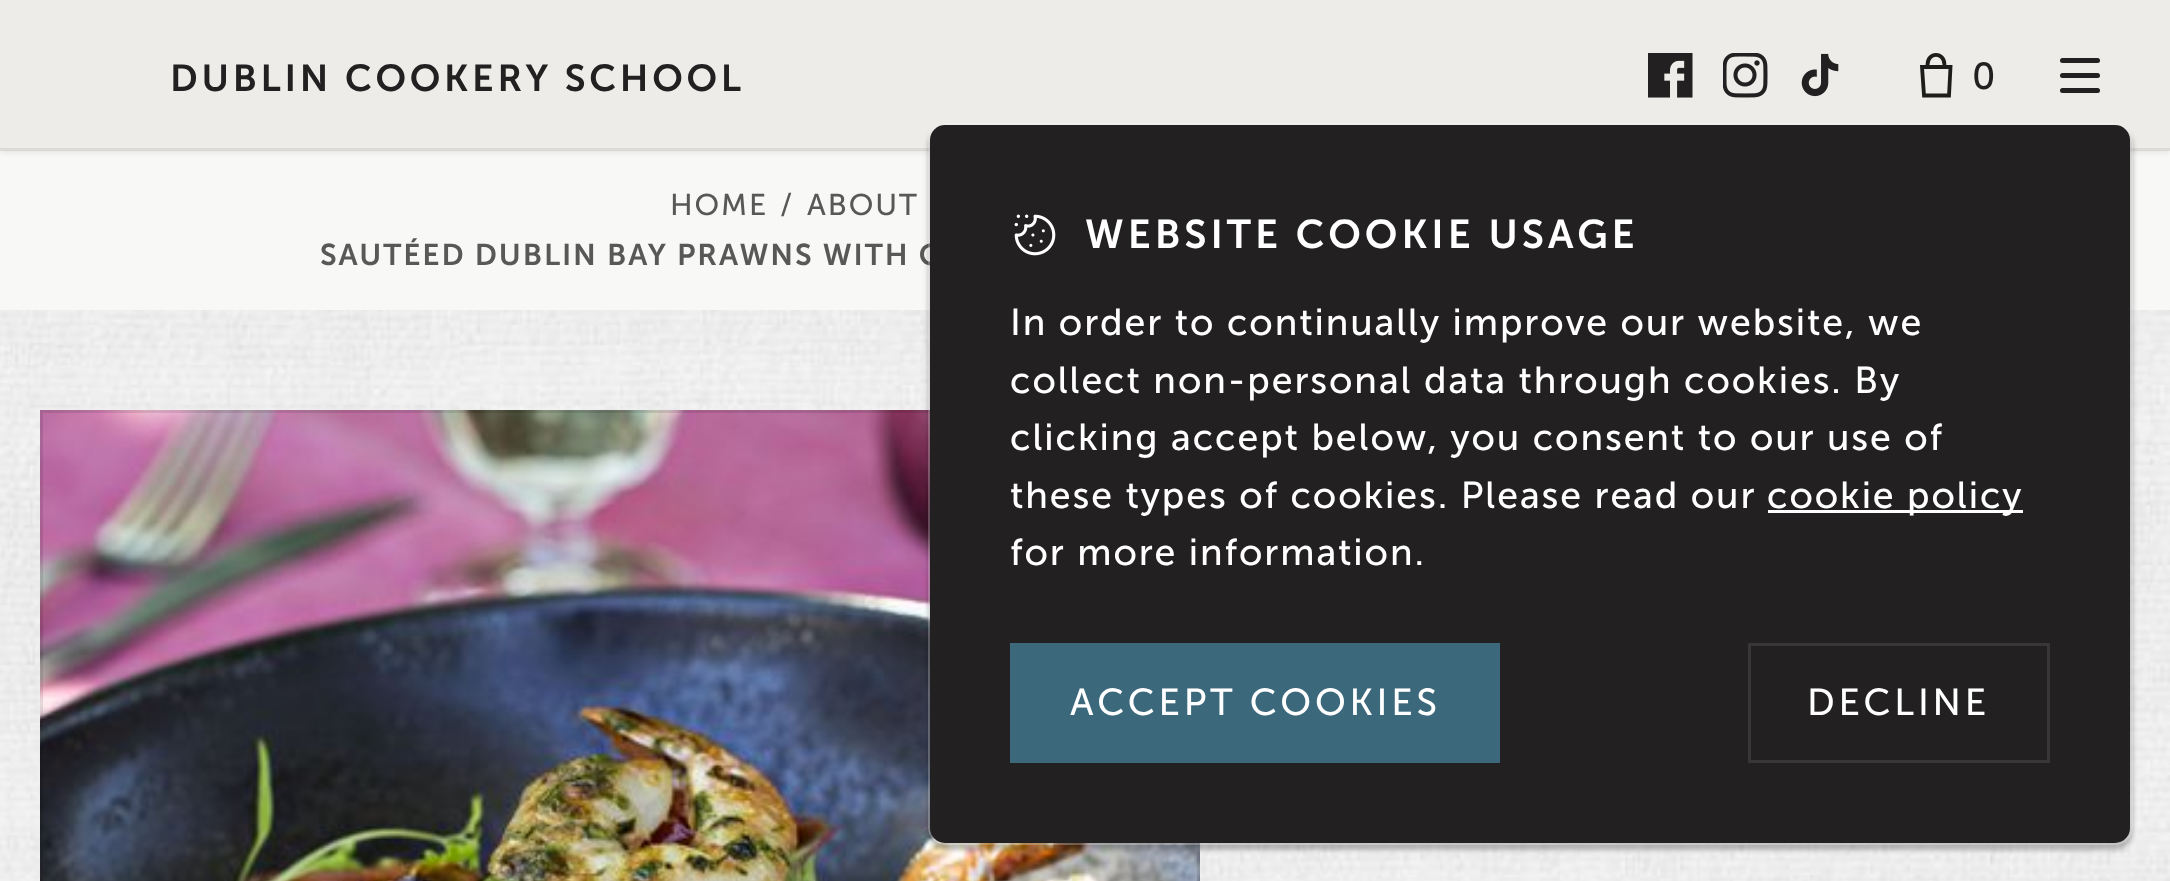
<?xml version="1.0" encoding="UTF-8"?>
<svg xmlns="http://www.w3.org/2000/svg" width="2170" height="881">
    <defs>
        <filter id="blur1" x="-50%" y="-200%" width="200%" height="500%"><feGaussianBlur stdDeviation="2.5"/></filter>
    </defs>
    <rect width="100%" height="100%" fill="#F8F8F7"/>
    <rect x="0" y="3" width="2170" height="150" fill="#000000" fill-opacity="0.07" filter="url(#blur1)"/>
    <rect x="0" y="0" width="2170" height="150" fill="#EDECE8"/>
    <rect x="0" y="148" width="2170" height="3" fill="#000000" fill-opacity="0.07"/>
    <text x="170" y="91" font-family="Museo Sans" font-size="37.5" font-weight="600" letter-spacing="3.75" fill="#222020">DUBLIN COOKERY SCHOOL</text>
    <image x="1648" y="53" width="45" height="45" href="img_01.png"/>
    <image x="1723" y="53" width="45" height="45" href="img_02.png"/>
    <image x="1801" y="53" width="38" height="44" href="img_03.png"/>
    <path d="M 1922 67 L 1924 95.5 H 1949 L 1950.5 67 Z M 1927.5 65 C 1927.5 51.5 1944.5 51.5 1944.5 65" fill="none" stroke="#1D1D1B" stroke-width="3.8"/>
    <text x="1972" y="89" font-family="Museo Sans" font-size="37.5" letter-spacing="1.9" fill="#222020">0</text>
    <rect x="2060" y="73" width="40" height="5" rx="2.5" fill="#222020"/>
    <rect x="2060" y="58" width="40" height="5" rx="2.5" fill="#222020"/>
    <rect x="2060" y="88" width="40" height="5" rx="2.5" fill="#222020"/>
    <text x="670" y="215" font-family="Museo Sans" font-size="30" letter-spacing="1.9" fill="#585856">HOME</text>
    <text x="780" y="215" font-family="Museo Sans" font-size="30" letter-spacing="1.9" fill="#585856">/</text>
    <text x="807" y="215" font-family="Museo Sans" font-size="30" letter-spacing="1.9" fill="#585856">ABOUT</text>
    <text x="320" y="265" font-family="Museo Sans" font-size="30" font-weight="600" letter-spacing="1.9" fill="#585856">SAUTÉED DUBLIN BAY PRAWNS WITH G</text>
    <image x="0" y="310" width="2170" height="571" href="img_04.png"/>
    <image x="40" y="410" width="1160" height="471" href="img_05.png"/>
    <rect x="41.5" y="411.5" width="1157" height="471" fill="none" stroke="#000000" stroke-opacity="0.1" stroke-width="3"/>
    <rect x="928" y="128" width="1205" height="722" rx="18" fill="#000000" fill-opacity="0.25" filter="url(#blur1)"/>
    <rect x="929.5" y="124.5" width="1202" height="719" rx="16.5" fill="none" stroke="#FFFFFF" stroke-opacity="0.25" stroke-width="3"/>
    <rect x="930" y="125" width="1200" height="718" rx="15" fill="#222020"/>
    <image x="1014" y="214" width="42" height="42" href="img_06.png"/>
    <text x="1085" y="248" font-family="Museo Sans" font-size="40" font-weight="600" letter-spacing="4" fill="#FFFFFF">WEBSITE COOKIE USAGE</text>
    <text font-family="Museo Sans" font-size="37.5" letter-spacing="1.9" fill="#FFFFFF">
        <tspan x="1010" y="335">In order to continually improve our website, we</tspan>
        <tspan x="1010" y="393">collect non-personal data through cookies. By</tspan>
        <tspan x="1010" y="450">clicking accept below, you consent to our use of</tspan>
        <tspan x="1010" y="508">these types of cookies. Please read our</tspan>
    </text>
    <rect x="1768" y="510" width="255" height="3" fill="#FFFFFF"/>
    <text x="1767" y="508" font-family="Museo Sans" font-size="37.5" letter-spacing="1.9" fill="#FFFFFF">cookie policy</text>
    <text x="1010" y="565" font-family="Museo Sans" font-size="37.5" letter-spacing="1.9" fill="#FFFFFF">for more information.</text>
    <rect x="1010" y="643" width="490" height="120" fill="#3C687B"/>
    <text x="1070" y="715" font-family="Museo Sans" font-size="37.5" letter-spacing="3.75" fill="#FFFFFF">ACCEPT COOKIES</text>
    <rect x="1749.5" y="644.5" width="299" height="117" fill="none" stroke="#383636" stroke-width="3"/>
    <text x="1807" y="715" font-family="Museo Sans" font-size="37.5" letter-spacing="3.75" fill="#FFFFFF">DECLINE</text>
</svg>
